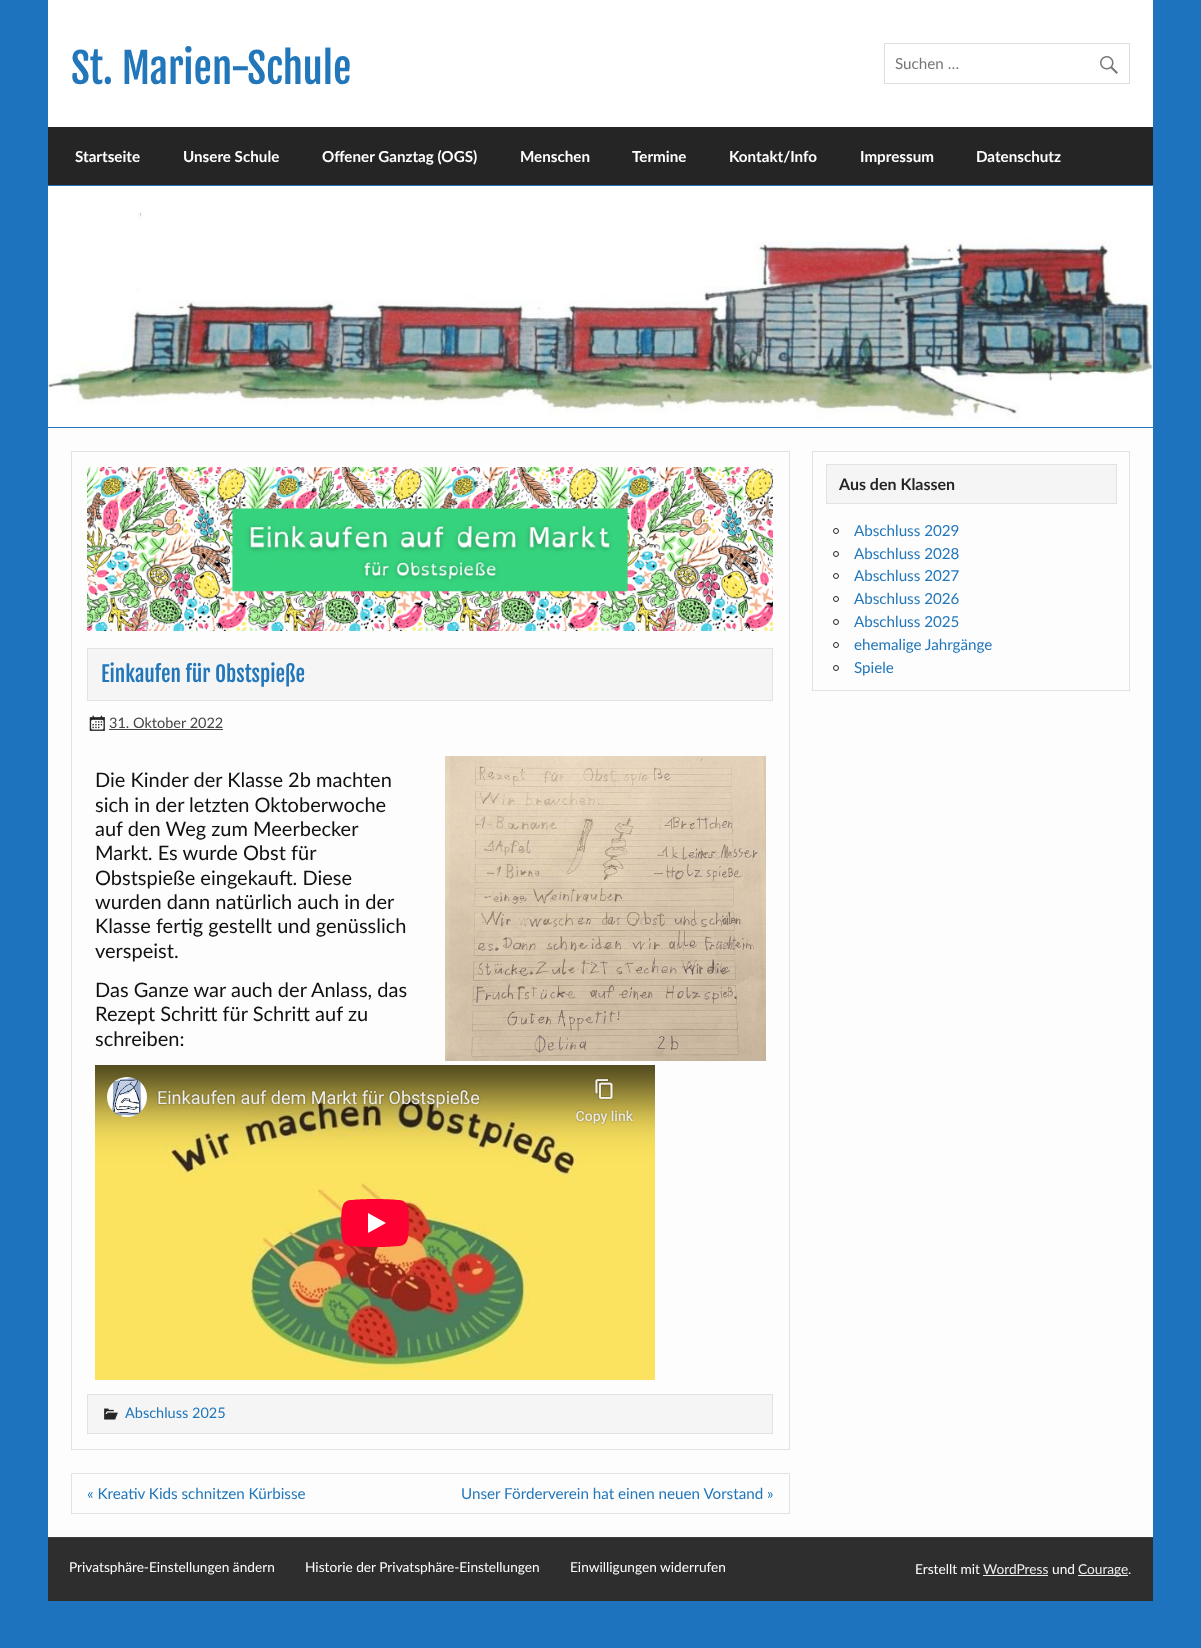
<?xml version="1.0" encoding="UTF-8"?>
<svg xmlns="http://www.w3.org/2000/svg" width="1201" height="1648">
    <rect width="100%" height="100%" fill="#1E73BE"/>
    <rect x="48" y="0" width="1105" height="127" fill="#FFFFFF"/>
    <text x="71" y="84" font-family="Fjalla One" font-size="41" fill="#2277BB">St. Marien-Schule</text>
    <rect x="884.5" y="43.5" width="245" height="40" fill="none" stroke="#DDDDDD"/>
    <text x="895" y="69" font-family="Lato" font-size="15.2" fill="#757575">Suchen …</text>
    <image x="1100" y="56" width="18" height="18" href="img_01.png"/>
    <rect x="48" y="127" width="1105" height="58" fill="#252525"/>
    <text x="75" y="162" font-family="Lato" font-size="15.2" font-weight="700" fill="#FFFFFF">Startseite</text>
    <text x="183" y="162" font-family="Lato" font-size="15.2" font-weight="700" fill="#FFFFFF">Unsere Schule</text>
    <text x="322" y="162" font-family="Lato" font-size="15.2" font-weight="700" fill="#FFFFFF">Offener Ganztag (OGS)</text>
    <text x="520" y="162" font-family="Lato" font-size="15.2" font-weight="700" fill="#FFFFFF">Menschen</text>
    <text x="632" y="162" font-family="Lato" font-size="15.2" font-weight="700" fill="#FFFFFF">Termine</text>
    <text x="729" y="162" font-family="Lato" font-size="15.2" font-weight="700" fill="#FFFFFF">Kontakt/Info</text>
    <text x="860" y="162" font-family="Lato" font-size="15.2" font-weight="700" fill="#FFFFFF">Impressum</text>
    <text x="976" y="162" font-family="Lato" font-size="15.2" font-weight="700" fill="#FFFFFF">Datenschutz</text>
    <image x="48" y="186" width="1105" height="241" href="img_02.png"/>
    <rect x="48" y="428" width="1105" height="1109" fill="#FDFDFD"/>
    <rect x="812.5" y="451.5" width="317" height="239" fill="none" stroke="#E2E2E2"/>
    <rect x="826.5" y="464.5" width="290" height="39" fill="#F5F5F5" stroke="#E2E2E2"/>
    <text x="839" y="490" font-family="Lato" font-size="16" font-weight="700" fill="#252525">Aus den Klassen</text>
    <circle cx="836" cy="531" r="2.5" fill="none" stroke="#252525"/>
    <text x="854" y="536" font-family="Lato" font-size="15.2" fill="#2277BB">Abschluss 2029</text>
    <circle cx="836" cy="554" r="2.5" fill="none" stroke="#252525"/>
    <text x="854" y="559" font-family="Lato" font-size="15.2" fill="#2277BB">Abschluss 2028</text>
    <circle cx="836" cy="576" r="2.5" fill="none" stroke="#252525"/>
    <text x="854" y="581" font-family="Lato" font-size="15.2" fill="#2277BB">Abschluss 2027</text>
    <circle cx="836" cy="599" r="2.5" fill="none" stroke="#252525"/>
    <text x="854" y="604" font-family="Lato" font-size="15.2" fill="#2277BB">Abschluss 2026</text>
    <circle cx="836" cy="622" r="2.5" fill="none" stroke="#252525"/>
    <text x="854" y="627" font-family="Lato" font-size="15.2" fill="#2277BB">Abschluss 2025</text>
    <circle cx="836" cy="645" r="2.5" fill="none" stroke="#252525"/>
    <text x="854" y="650" font-family="Lato" font-size="15.2" fill="#2277BB">ehemalige Jahrgänge</text>
    <circle cx="836" cy="668" r="2.5" fill="none" stroke="#252525"/>
    <text x="854" y="673" font-family="Lato" font-size="15.2" fill="#2277BB">Spiele</text>
    <rect x="71.5" y="451.5" width="718" height="998" fill="none" stroke="#E2E2E2"/>
    <image x="87" y="467" width="686" height="164" href="img_03.png"/>
    <rect x="87.5" y="648.5" width="685" height="52" fill="#F5F5F5" stroke="#E2E2E2"/>
    <text x="101" y="682" font-family="Fjalla One" font-size="21.25" fill="#2277BB">Einkaufen für Obstspieße</text>
    <image x="89" y="715" width="16" height="16" href="img_04.png"/>
    <text x="109" y="728" font-family="Lato" font-size="14.5" fill="#444444">31. Oktober 2022</text>
    <rect x="109" y="729" width="114" height="1" fill="#444444"/>
    <text font-family="Lato" font-size="20" fill="#111111">
        <tspan x="95" y="787">Die Kinder der Klasse 2b machten</tspan>
        <tspan x="95" y="812">sich in der letzten Oktoberwoche</tspan>
        <tspan x="95" y="836">auf den Weg zum Meerbecker</tspan>
        <tspan x="95" y="860">Markt. Es wurde Obst für</tspan>
        <tspan x="95" y="885">Obstspieße eingekauft. Diese</tspan>
        <tspan x="95" y="909">wurden dann natürlich auch in der</tspan>
        <tspan x="95" y="933">Klasse fertig gestellt und genüsslich</tspan>
        <tspan x="95" y="958">verspeist.</tspan>
        <tspan x="95" y="997">Das Ganze war auch der Anlass, das</tspan>
        <tspan x="95" y="1021">Rezept Schritt für Schritt auf zu</tspan>
        <tspan x="95" y="1046">schreiben:</tspan>
    </text>
    <image x="445" y="756" width="321" height="305" href="img_05.png"/>
    <image x="95" y="1065" width="560" height="315" href="img_06.png"/>
    <rect x="87.5" y="1394.5" width="685" height="39" fill="#F5F5F5" stroke="#E2E2E2"/>
    <image x="104" y="1408" width="14" height="12" href="img_07.png"/>
    <text x="125" y="1418" font-family="Lato" font-size="14.5" fill="#2277BB">Abschluss 2025</text>
    <rect x="71.5" y="1473.5" width="718" height="40" fill="none" stroke="#E2E2E2"/>
    <text x="87" y="1499" font-family="Lato" font-size="15.2" fill="#2277BB">« Kreativ Kids schnitzen Kürbisse</text>
    <text x="461" y="1499" font-family="Lato" font-size="15.2" fill="#2277BB">Unser Förderverein hat einen neuen Vorstand »</text>
    <rect x="48" y="1538" width="1105" height="63" fill="#2E2E2E"/>
    <rect x="48" y="1537" width="1105" height="1" fill="#3F3F3F"/>
    <text x="69" y="1572" font-family="Lato" font-size="13.7" fill="#FFFFFF">Privatsphäre-Einstellungen ändern</text>
    <text x="305" y="1572" font-family="Lato" font-size="13.7" fill="#FFFFFF">Historie der Privatsphäre-Einstellungen</text>
    <text x="570" y="1572" font-family="Lato" font-size="13.7" fill="#FFFFFF">Einwilligungen widerrufen</text>
    <text x="915" y="1574" font-family="Lato" font-size="13.7" fill="#FFFFFF">Erstellt mit</text>
    <text x="983" y="1574" font-family="Lato" font-size="13.7" fill="#EEEEEE">WordPress</text>
    <rect x="983" y="1575" width="65" height="1" fill="#EEEEEE"/>
    <text x="1052" y="1574" font-family="Lato" font-size="13.7" fill="#FFFFFF">und</text>
    <rect x="1078" y="1575" width="50" height="1" fill="#EEEEEE"/>
    <text x="1078" y="1574" font-family="Lato" font-size="13.7" fill="#EEEEEE">Courage</text>
    <text x="1128" y="1574" font-family="Lato" font-size="13.7" fill="#FFFFFF">.</text>
</svg>
